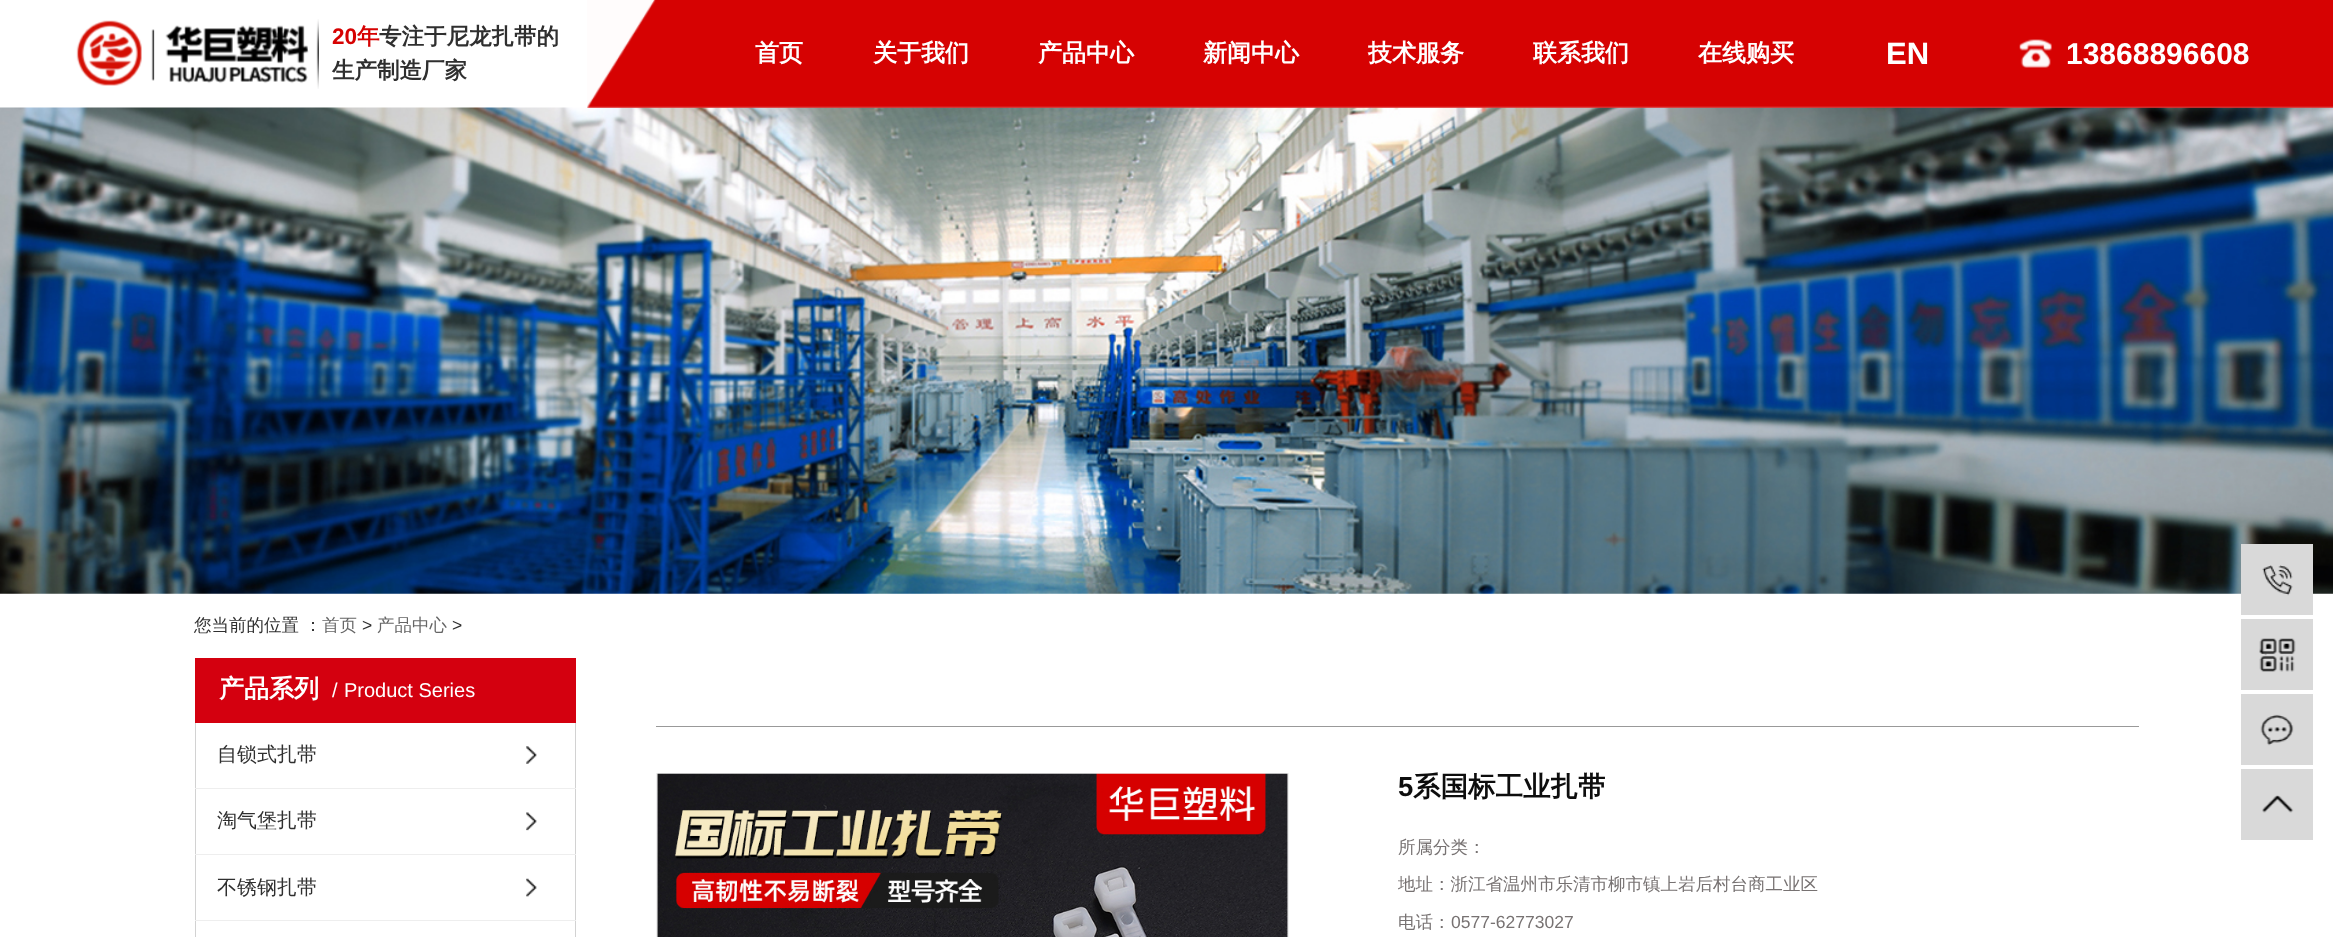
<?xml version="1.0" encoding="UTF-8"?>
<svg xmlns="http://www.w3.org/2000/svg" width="2333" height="937">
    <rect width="100%" height="100%" fill="#FFFFFF"/>
    <image x="76" y="20" width="233" height="66" href="img_01.png"/>
    <image x="316" y="19" width="3" height="70" href="img_02.png"/>
    <text x="332" y="44" font-family="Liberation Sans" font-size="22.5" font-weight="700" fill="#D60202">20</text>
    <text x="357" y="44" font-family="WenQuanYi Zen Hei" font-size="22.5" font-weight="700" fill="#D60202">年</text>
    <text x="379" y="44" font-family="WenQuanYi Zen Hei" font-size="22.5" font-weight="700" fill="#2F2F2F">专注于尼龙扎带的</text>
    <text x="332" y="78" font-family="WenQuanYi Zen Hei" font-size="22.5" font-weight="700" fill="#2F2F2F">生产制造厂家</text>
    <image x="0" y="107" width="2333" height="487" href="img_05.png"/>
    <image x="587" y="0" width="1746" height="108" href="img_03.png"/>
    <text x="755" y="61" font-family="WenQuanYi Zen Hei" font-size="24" font-weight="700" fill="#FFFFFF">首页</text>
    <text x="873" y="61" font-family="WenQuanYi Zen Hei" font-size="24" font-weight="700" fill="#FFFFFF">关于我们</text>
    <text x="1038" y="61" font-family="WenQuanYi Zen Hei" font-size="24" font-weight="700" fill="#FFFFFF">产品中心</text>
    <text x="1203" y="61" font-family="WenQuanYi Zen Hei" font-size="24" font-weight="700" fill="#FFFFFF">新闻中心</text>
    <text x="1368" y="61" font-family="WenQuanYi Zen Hei" font-size="24" font-weight="700" fill="#FFFFFF">技术服务</text>
    <text x="1533" y="61" font-family="WenQuanYi Zen Hei" font-size="24" font-weight="700" fill="#FFFFFF">联系我们</text>
    <text x="1698" y="61" font-family="WenQuanYi Zen Hei" font-size="24" font-weight="700" fill="#FFFFFF">在线购买</text>
    <text x="1886" y="64" font-family="Liberation Sans" font-size="31" font-weight="700" fill="#FFFFFF">EN</text>
    <image x="2019" y="39" width="33" height="29" href="img_04.png"/>
    <text x="2066" y="64" font-family="Liberation Sans" font-size="30" font-weight="700" fill="#FFFFFF">13868896608</text>
    <text x="194" y="631" font-family="WenQuanYi Zen Hei" font-size="17.5" font-weight="500" fill="#2F2F2F">您当前的位置 ：</text>
    <text x="322" y="631" font-family="WenQuanYi Zen Hei" font-size="17.5" font-weight="500" fill="#666666">首页</text>
    <text x="362" y="631" font-family="Liberation Sans" font-size="17.5" fill="#2F2F2F">&gt;</text>
    <text x="377" y="631" font-family="WenQuanYi Zen Hei" font-size="17.5" font-weight="500" fill="#666666">产品中心</text>
    <text x="452" y="631" font-family="Liberation Sans" font-size="17.5" fill="#2F2F2F">&gt;</text>
    <rect x="2241" y="544" width="72" height="71" fill="#D9D9D9"/>
    <image x="2262" y="565" width="31" height="31" href="img_06.png"/>
    <rect x="2241" y="619" width="72" height="71" fill="#D9D9D9"/>
    <image x="2259" y="638" width="37" height="34" href="img_07.png"/>
    <rect x="2241" y="694" width="72" height="71" fill="#D9D9D9"/>
    <image x="2260" y="714" width="34" height="32" href="img_08.png"/>
    <rect x="2241" y="769" width="72" height="71" fill="#D9D9D9"/>
    <image x="2262" y="795" width="32" height="18" href="img_09.png"/>
    <rect x="195" y="658" width="381" height="65" fill="#D4000F"/>
    <text x="219" y="697" font-family="WenQuanYi Zen Hei" font-size="25" font-weight="700" fill="#FFFFFF">产品系列</text>
    <text x="332" y="697" font-family="Liberation Sans" font-size="20" fill="#FFFFFF">/</text>
    <text x="344" y="697" font-family="Liberation Sans" font-size="20" fill="#FFFFFF">Product Series</text>
    <rect x="575" y="723" width="1" height="214" fill="#D2D2D2"/>
    <rect x="195" y="723" width="1" height="214" fill="#D2D2D2"/>
    <rect x="195" y="788" width="381" height="1" fill="#EEEEEE"/>
    <text x="217" y="761" font-family="WenQuanYi Zen Hei" font-size="20" font-weight="500" fill="#2F2F2F">自锁式扎带</text>
    <image x="526" y="746" width="11" height="18" href="img_10.png"/>
    <rect x="195" y="854" width="381" height="1" fill="#EEEEEE"/>
    <text x="217" y="827" font-family="WenQuanYi Zen Hei" font-size="20" font-weight="500" fill="#2F2F2F">淘气堡扎带</text>
    <image x="526" y="812" width="11" height="19" href="img_11.png"/>
    <rect x="195" y="920" width="381" height="1" fill="#EEEEEE"/>
    <text x="217" y="894" font-family="WenQuanYi Zen Hei" font-size="20" font-weight="500" fill="#2F2F2F">不锈钢扎带</text>
    <image x="526" y="878" width="11" height="19" href="img_12.png"/>
    <rect x="656" y="726" width="1483" height="1" fill="#999999"/>
    <rect x="656.5" y="773.5" width="632" height="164" fill="none" stroke="#EEEEEE"/>
    <image x="657" y="773" width="631" height="164" href="img_13.png"/>
    <text x="1398" y="796" font-family="Liberation Sans" font-size="27.5" font-weight="700" fill="#0D0D0D">5</text>
    <text x="1413" y="796" font-family="WenQuanYi Zen Hei" font-size="27.5" font-weight="700" fill="#0D0D0D">系国标工业扎带</text>
    <text x="1398" y="853" font-family="WenQuanYi Zen Hei" font-size="17.5" font-weight="500" fill="#777272">所属分类：</text>
    <text x="1398" y="890" font-family="WenQuanYi Zen Hei" font-size="17.5" font-weight="500" fill="#777272">地址：浙江省温州市乐清市柳市镇上岩后村台商工业区</text>
    <text x="1398" y="928" font-family="WenQuanYi Zen Hei" font-size="17.5" font-weight="500" fill="#777272">电话：</text>
    <text x="1451" y="928" font-family="Liberation Sans" font-size="17.5" fill="#777272">0577-62773027</text>
</svg>
